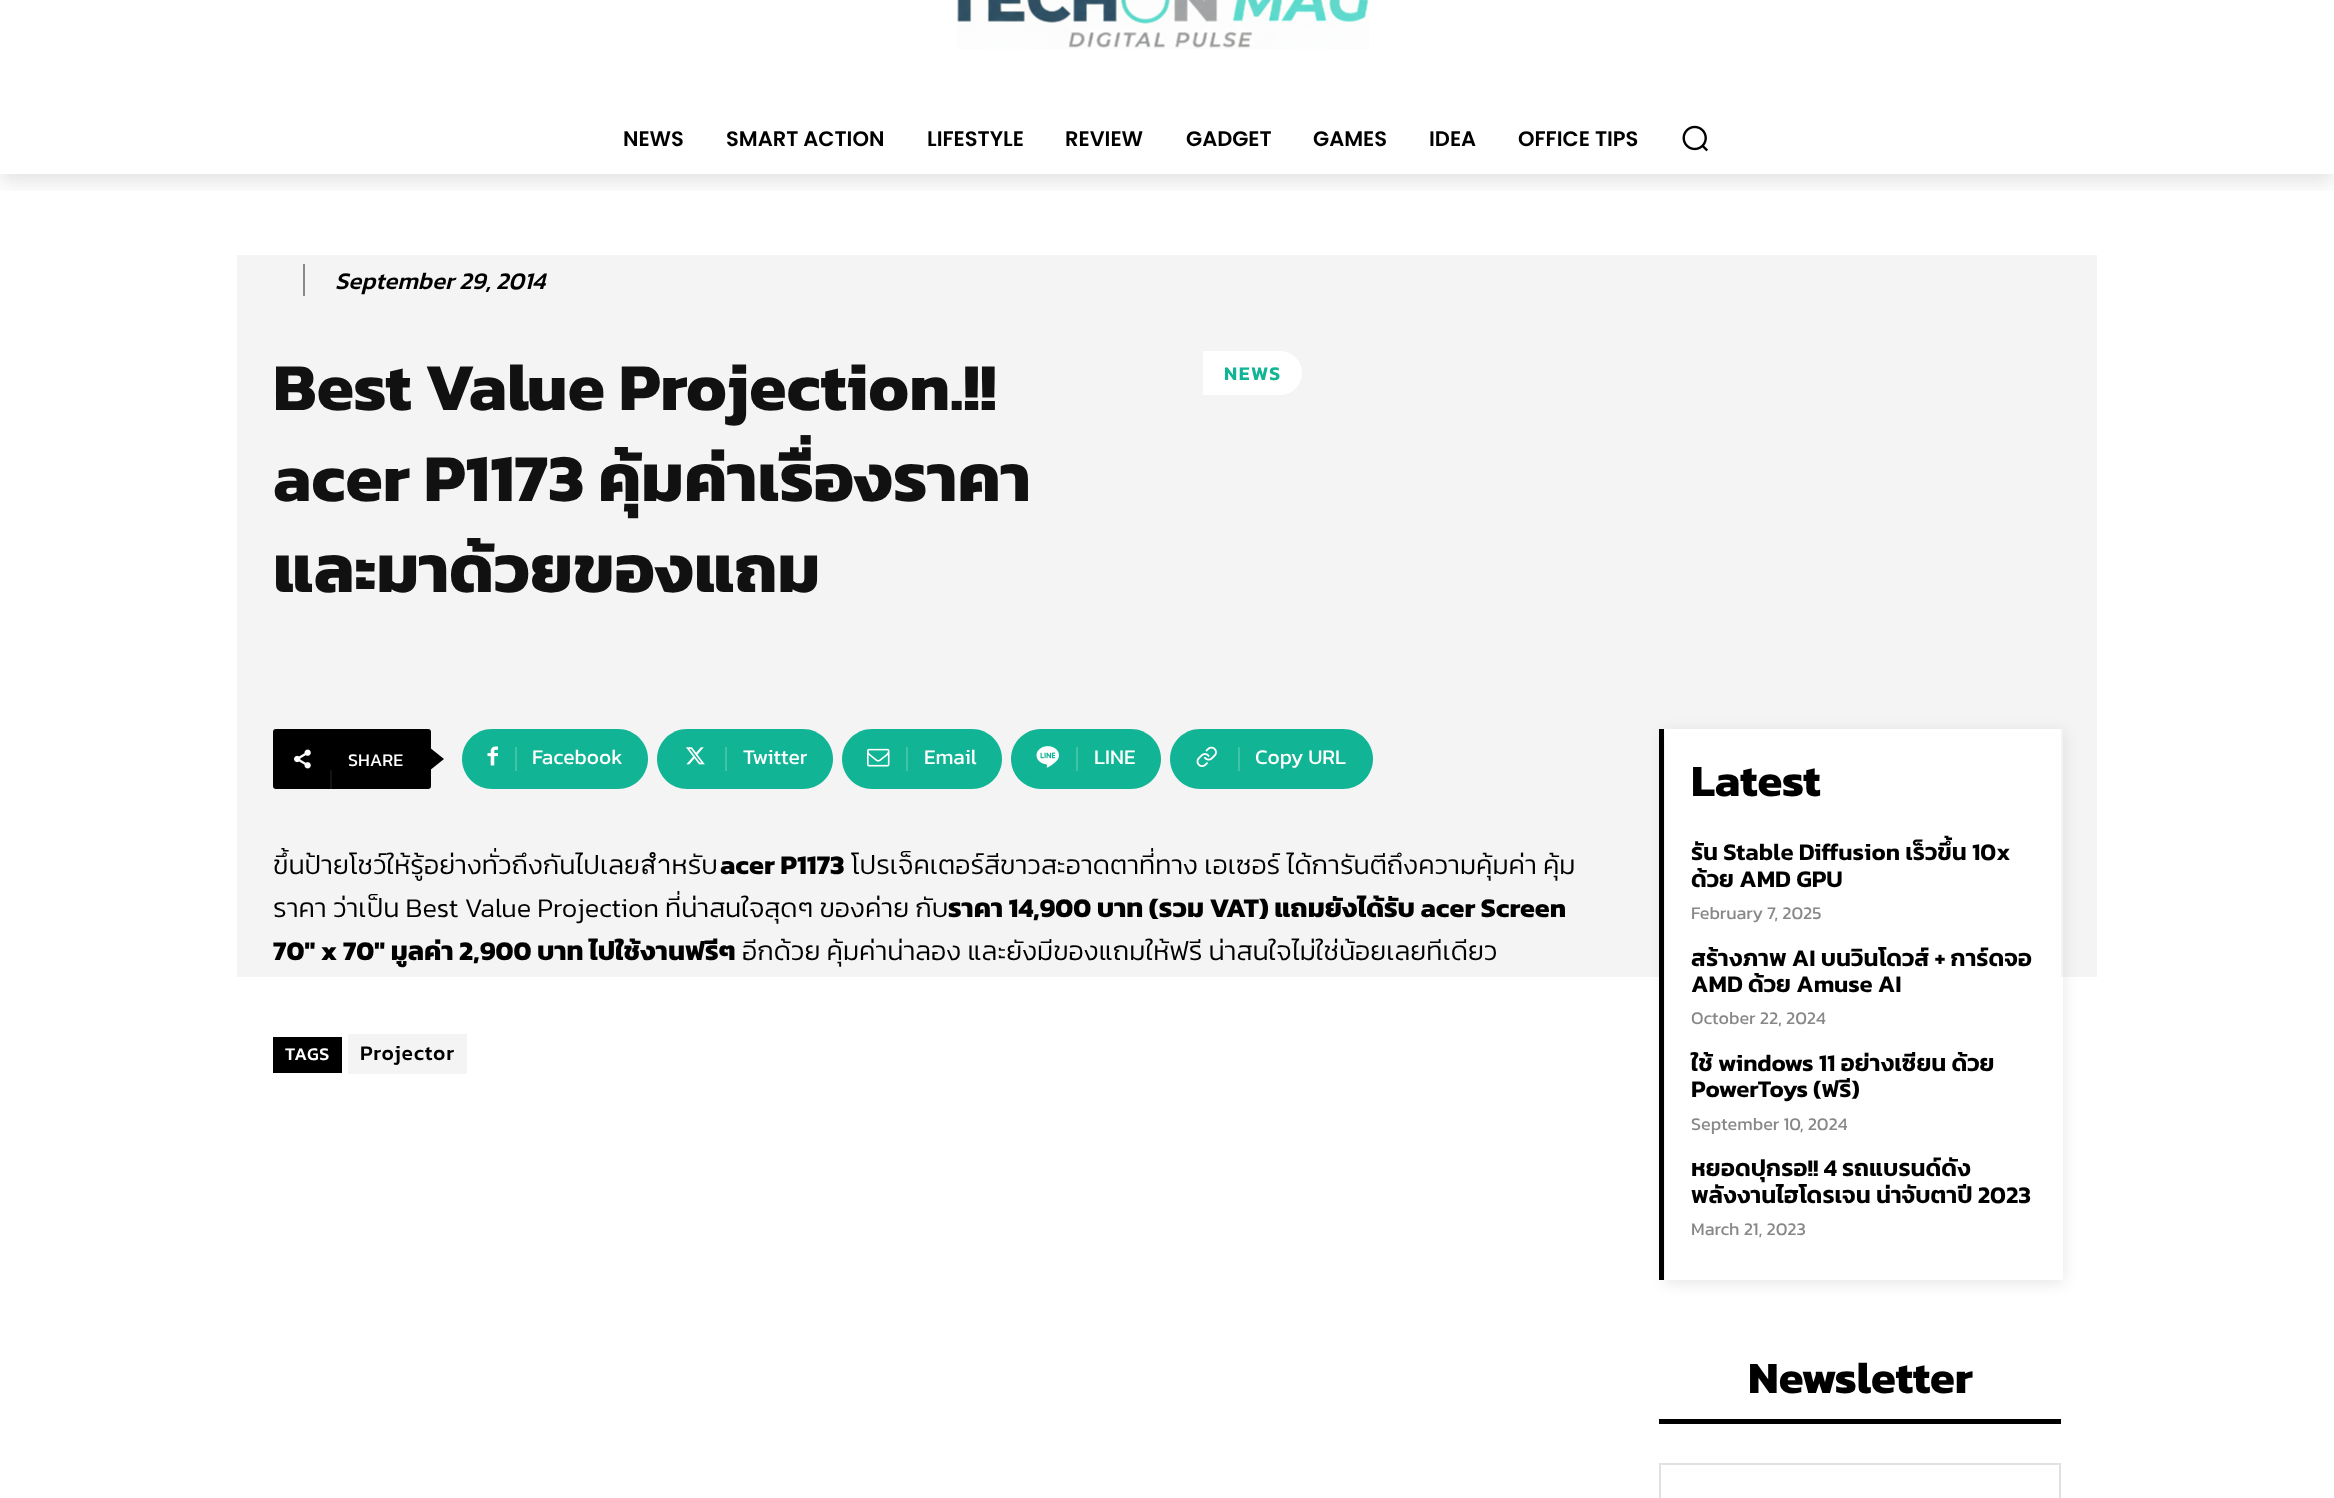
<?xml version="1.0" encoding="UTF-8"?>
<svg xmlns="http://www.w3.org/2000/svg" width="2334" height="1498">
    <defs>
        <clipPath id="clip1"><rect x="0" y="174" width="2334" height="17"/></clipPath>
        <filter id="blur1" x="-50%" y="-200%" width="200%" height="500%"><feGaussianBlur stdDeviation="9"/></filter>
        <clipPath id="clip2"><path d="M 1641 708 H 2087 V 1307 H 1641 Z M 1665 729 H 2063 V 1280 H 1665 Z" clip-rule="evenodd"/></clipPath>
        <filter id="blur2" x="-50%" y="-200%" width="200%" height="500%"><feGaussianBlur stdDeviation="7.5"/></filter>
    </defs>
    <rect width="100%" height="100%" fill="#FFFFFF"/>
    <image x="957" y="0" width="412" height="49" href="img_01.png"/>
    <g clip-path="url(#clip1)">
        <rect x="0" y="-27" width="2334" height="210" fill="#000000" fill-opacity="0.1" filter="url(#blur1)"/>
    </g>
    <text x="623" y="146" font-family="Poppins" font-size="21" font-weight="600" fill="#000000">NEWS</text>
    <text x="726" y="146" font-family="Poppins" font-size="21" font-weight="600" fill="#000000">SMART ACTION</text>
    <text x="927" y="146" font-family="Poppins" font-size="21" font-weight="600" fill="#000000">LIFESTYLE</text>
    <text x="1065" y="146" font-family="Poppins" font-size="21" font-weight="600" fill="#000000">REVIEW</text>
    <text x="1186" y="146" font-family="Poppins" font-size="21" font-weight="600" fill="#000000">GADGET</text>
    <text x="1313" y="146" font-family="Poppins" font-size="21" font-weight="600" fill="#000000">GAMES</text>
    <text x="1429" y="146" font-family="Poppins" font-size="21" font-weight="600" fill="#000000">IDEA</text>
    <text x="1518" y="146" font-family="Poppins" font-size="21" font-weight="600" fill="#000000">OFFICE TIPS</text>
    <image x="1682" y="125" width="26" height="27" href="img_02.png"/>
    <rect x="237" y="255" width="1860" height="722" fill="#F4F4F4"/>
    <rect x="303" y="264" width="2" height="32" fill="#888888"/>
    <text x="335" y="289" font-family="Kanit" font-size="24" font-weight="500" font-style="italic" fill="#000000">September 29, 2014</text>
    <text font-family="Kanit" font-size="67.5" font-weight="700" fill="#111111">
        <tspan x="273" y="410">Best Value Projection.!!</tspan>
        <tspan x="273" y="501">acer P1173 คุ้มค่าเรื่องราคา</tspan>
        <tspan x="273" y="592">และมาด้วยของแถม</tspan>
    </text>
    <path d="M 1203 351 H 1280 C 1292 351 1302 361 1302 373 C 1302 385 1292 395 1280 395 H 1203 Z" fill="#FFFFFF"/>
    <text x="1224" y="380" font-family="Kanit" font-size="19.5" font-weight="600" letter-spacing="1.5" fill="#11B494">NEWS</text>
    <rect x="273" y="729" width="158" height="60" rx="3" fill="#000000"/>
    <rect x="330" y="770" width="2" height="19" fill="#141414"/>
    <image x="294" y="749" width="17" height="20" href="img_03.png"/>
    <text x="348" y="766" font-family="Kanit" font-size="18" fill="#FFFFFF">SHARE</text>
    <path d="M 429 771 V 747 L 444 759 Z" fill="#000000"/>
    <path d="M 515 729 H 618 C 634.5 729 648 742.5 648 759 C 648 775.5 634.5 789 618 789 H 515 Z" fill="#11B494"/>
    <path d="M 492 729 H 524 V 789 H 492 C 475.5 789 462 775.5 462 759 C 462 742.5 475.5 729 492 729 Z" fill="#11B494"/>
    <image x="487" y="746" width="11" height="20" href="img_04.png"/>
    <rect x="515" y="747" width="2" height="24" fill="#41C3A9"/>
    <text x="532" y="764" font-family="Kanit" font-size="21" fill="#FFFFFF">Facebook</text>
    <path d="M 725 729 H 803 C 819.5 729 833 742.5 833 759 C 833 775.5 819.5 789 803 789 H 725 Z" fill="#11B494"/>
    <path d="M 687 729 H 734 V 789 H 687 C 670.5 789 657 775.5 657 759 C 657 742.5 670.5 729 687 729 Z" fill="#11B494"/>
    <image x="686" y="747" width="19" height="18" href="img_05.png"/>
    <rect x="725" y="747" width="2" height="24" fill="#41C3A9"/>
    <text x="743" y="764" font-family="Kanit" font-size="21" fill="#FFFFFF">Twitter</text>
    <path d="M 906 729 H 972 C 988.5 729 1002 742.5 1002 759 C 1002 775.5 988.5 789 972 789 H 906 Z" fill="#11B494"/>
    <path d="M 872 729 H 915 V 789 H 872 C 855.5 789 842 775.5 842 759 C 842 742.5 855.5 729 872 729 Z" fill="#11B494"/>
    <image x="867" y="748" width="23" height="19" href="img_06.png"/>
    <rect x="906" y="747" width="2" height="24" fill="#41C3A9"/>
    <text x="924" y="764" font-family="Kanit" font-size="21" fill="#FFFFFF">Email</text>
    <path d="M 1076 729 H 1131 C 1147.5 729 1161 742.5 1161 759 C 1161 775.5 1147.5 789 1131 789 H 1076 Z" fill="#11B494"/>
    <path d="M 1041 729 H 1085 V 789 H 1041 C 1024.5 789 1011 775.5 1011 759 C 1011 742.5 1024.5 729 1041 729 Z" fill="#11B494"/>
    <image x="1036" y="746" width="23" height="22" href="img_07.png"/>
    <rect x="1076" y="747" width="2" height="24" fill="#41C3A9"/>
    <text x="1094" y="764" font-family="Kanit" font-size="21" fill="#FFFFFF">LINE</text>
    <path d="M 1238 729 H 1343 C 1359.5 729 1373 742.5 1373 759 C 1373 775.5 1359.5 789 1343 789 H 1238 Z" fill="#11B494"/>
    <path d="M 1200 729 H 1247 V 789 H 1200 C 1183.5 789 1170 775.5 1170 759 C 1170 742.5 1183.5 729 1200 729 Z" fill="#11B494"/>
    <image x="1196" y="746" width="21" height="21" href="img_08.png"/>
    <rect x="1238" y="747" width="2" height="24" fill="#41C3A9"/>
    <text x="1255" y="764" font-family="Kanit" font-size="21" fill="#FFFFFF">Copy URL</text>
    <text x="273" y="874" font-family="Kanit" font-size="27" font-weight="300" fill="#000000">ขึ้นป้ายโชว์ให้รู้อย่างทั่วถึงกันไปเลยสำหรับ</text>
    <text x="720" y="874" font-family="Kanit" font-size="27" font-weight="700" fill="#000000">acer P1173</text>
    <text x="851" y="874" font-family="Kanit" font-size="27" font-weight="300" fill="#000000">โปรเจ็คเตอร์สีขาวสะอาดตาที่ทาง เอเซอร์ ได้การันตีถึงความคุ้มค่า คุ้ม</text>
    <text x="273" y="917" font-family="Kanit" font-size="27" font-weight="300" fill="#000000">ราคา ว่าเป็น Best Value Projection ที่น่าสนใจสุดๆ ของค่าย กับ</text>
    <text x="948" y="917" font-family="Kanit" font-size="27" font-weight="700" fill="#000000">ราคา 14,900 บาท (รวม VAT) แถมยังได้รับ acer Screen</text>
    <text x="273" y="960" font-family="Kanit" font-size="27" font-weight="700" fill="#000000">70″ x 70″ มูลค่า 2,900 บาท ไปใช้งานฟรีๆ</text>
    <text x="742" y="960" font-family="Kanit" font-size="27" font-weight="300" fill="#000000">อีกด้วย คุ้มค่าน่าลอง และยังมีของแถมให้ฟรี น่าสนใจไม่ใช่น้อยเลยทีเดียว</text>
    <rect x="273" y="1037" width="69" height="36" fill="#000000"/>
    <text x="285" y="1060" font-family="Kanit" font-size="18" font-weight="500" letter-spacing="0.75" fill="#FFFFFF">TAGS</text>
    <rect x="348" y="1034" width="119" height="40" fill="#F4F4F4"/>
    <text x="360" y="1060" font-family="Kanit" font-size="21" font-weight="500" letter-spacing="0.75" fill="#000000">Projector</text>
    <rect x="1659" y="729" width="5" height="551" fill="#000000"/>
    <rect x="1664" y="729" width="397" height="248" fill="#FFFFFF"/>
    <g clip-path="url(#clip2)">
        <rect x="1665" y="732" width="398" height="551" fill="#000000" fill-opacity="0.1" filter="url(#blur2)"/>
    </g>
    <text x="1691" y="796" font-family="Kanit" font-size="45" font-weight="700" fill="#000000">Latest</text>
    <text font-family="Kanit" font-size="24" font-weight="600" fill="#000000">
        <tspan x="1691" y="860">รัน Stable Diffusion เร็วขึ้น 10x</tspan>
        <tspan x="1691" y="887">ด้วย AMD GPU</tspan>
    </text>
    <text x="1691" y="919" font-family="Kanit" font-size="18" fill="#888888">February 7, 2025</text>
    <text font-family="Kanit" font-size="24" font-weight="600" fill="#000000">
        <tspan x="1691" y="966">สร้างภาพ AI บนวินโดวส์ + การ์ดจอ</tspan>
        <tspan x="1691" y="992">AMD ด้วย Amuse AI</tspan>
    </text>
    <text x="1691" y="1024" font-family="Kanit" font-size="18" fill="#888888">October 22, 2024</text>
    <text font-family="Kanit" font-size="24" font-weight="600" fill="#000000">
        <tspan x="1691" y="1071">ใช้ windows 11 อย่างเซียน ด้วย</tspan>
        <tspan x="1691" y="1097">PowerToys (ฟรี)</tspan>
    </text>
    <text x="1691" y="1130" font-family="Kanit" font-size="18" fill="#888888">September 10, 2024</text>
    <text font-family="Kanit" font-size="24" font-weight="600" fill="#000000">
        <tspan x="1691" y="1176">หยอดปุกรอ!! 4 รถแบรนด์ดัง</tspan>
        <tspan x="1691" y="1203">พลังงานไฮโดรเจน น่าจับตาปี 2023</tspan>
    </text>
    <text x="1691" y="1235" font-family="Kanit" font-size="18" fill="#888888">March 21, 2023</text>
    <rect x="1659" y="1419" width="402" height="5" fill="#000000"/>
    <text x="1748" y="1393" font-family="Kanit" font-size="45" font-weight="700" fill="#000000">Newsletter</text>
    <rect x="1660" y="1464" width="400" height="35" fill="none" stroke="#E1E1E1" stroke-width="2"/>
</svg>
